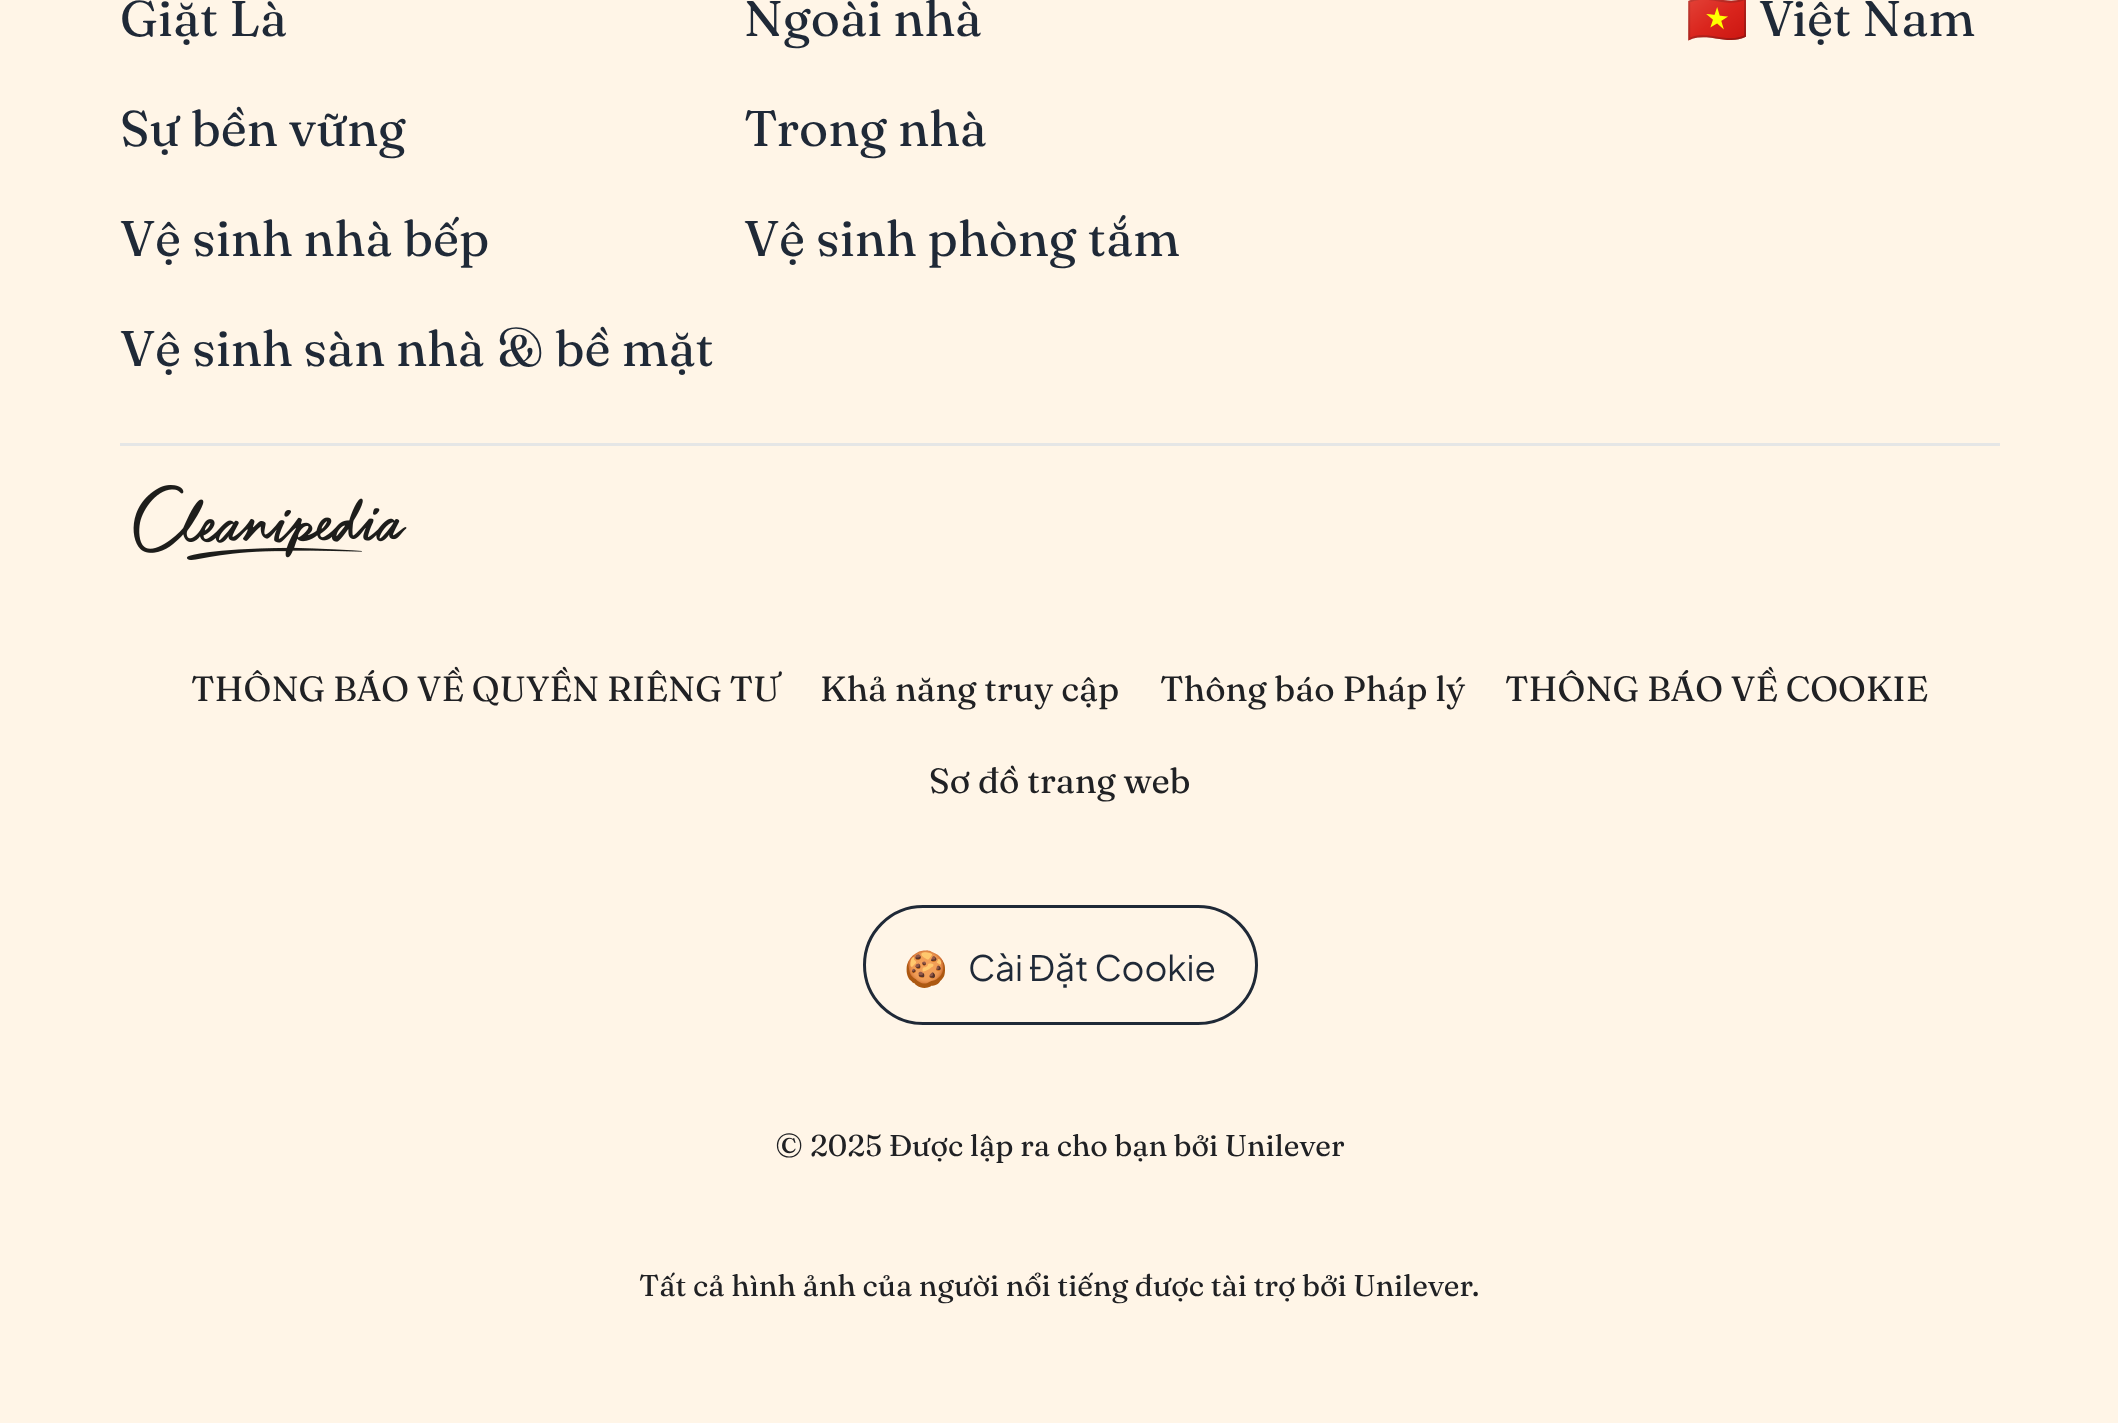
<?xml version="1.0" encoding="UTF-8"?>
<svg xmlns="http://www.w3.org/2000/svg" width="2118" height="1423">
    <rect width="100%" height="100%" fill="#FFF5E7"/>
    <text x="120" y="36" font-family="Fraunces" font-size="50" fill="#1F2937">Giặt Là</text>
    <text x="744" y="36" font-family="Fraunces" font-size="50" fill="#1F2937">Ngoài nhà</text>
    <text x="120" y="146" font-family="Fraunces" font-size="50" fill="#1F2937">Sự bền vững</text>
    <text x="744" y="146" font-family="Fraunces" font-size="50" fill="#1F2937">Trong nhà</text>
    <text x="120" y="256" font-family="Fraunces" font-size="50" fill="#1F2937">Vệ sinh nhà bếp</text>
    <text x="744" y="256" font-family="Fraunces" font-size="50" fill="#1F2937">Vệ sinh phòng tắm</text>
    <text x="120" y="366" font-family="Fraunces" font-size="50" fill="#1F2937">Vệ sinh sàn nhà &amp; bề mặt</text>
    <text x="1686" y="36" font-family="Noto Color Emoji" font-size="50" fill="#1F2937">🇻🇳</text>
    <text x="1759" y="36" font-family="Fraunces" font-size="50" fill="#1F2937">Việt Nam</text>
    <rect x="120" y="443" width="1880" height="3" fill="#E5E6E6"/>
    <image x="133" y="485" width="274" height="75" href="img_01.png"/>
    <text x="191" y="701" font-family="Fraunces" font-size="35" fill="#202124">THÔNG BÁO VỀ QUYỀN RIÊNG TƯ</text>
    <text x="820" y="701" font-family="Fraunces" font-size="35" fill="#202124">Khả năng truy cập</text>
    <text x="1160" y="701" font-family="Fraunces" font-size="35" fill="#202124">Thông báo Pháp lý</text>
    <text x="1505" y="701" font-family="Fraunces" font-size="35" fill="#202124">THÔNG BÁO VỀ COOKIE</text>
    <text x="929" y="793" font-family="Fraunces" font-size="35" fill="#202124">Sơ đồ trang web</text>
    <rect x="864.5" y="906.5" width="392" height="117" rx="58.5" fill="none" stroke="#1F2937" stroke-width="3"/>
    <text x="904" y="981" font-family="Noto Color Emoji" font-size="35" fill="#1F2937">🍪</text>
    <text x="968" y="981" font-family="Plus Jakarta Sans" font-size="35" fill="#1F2937">Cài Đặt Cookie</text>
    <text x="775" y="1156" font-family="Fraunces" font-size="30" fill="#202124">© 2025 Được lập ra cho bạn bởi Unilever</text>
    <text x="639" y="1296" font-family="Fraunces" font-size="30" fill="#202124">Tất cả hình ảnh của người nổi tiếng được tài trợ bởi Unilever.</text>
</svg>
